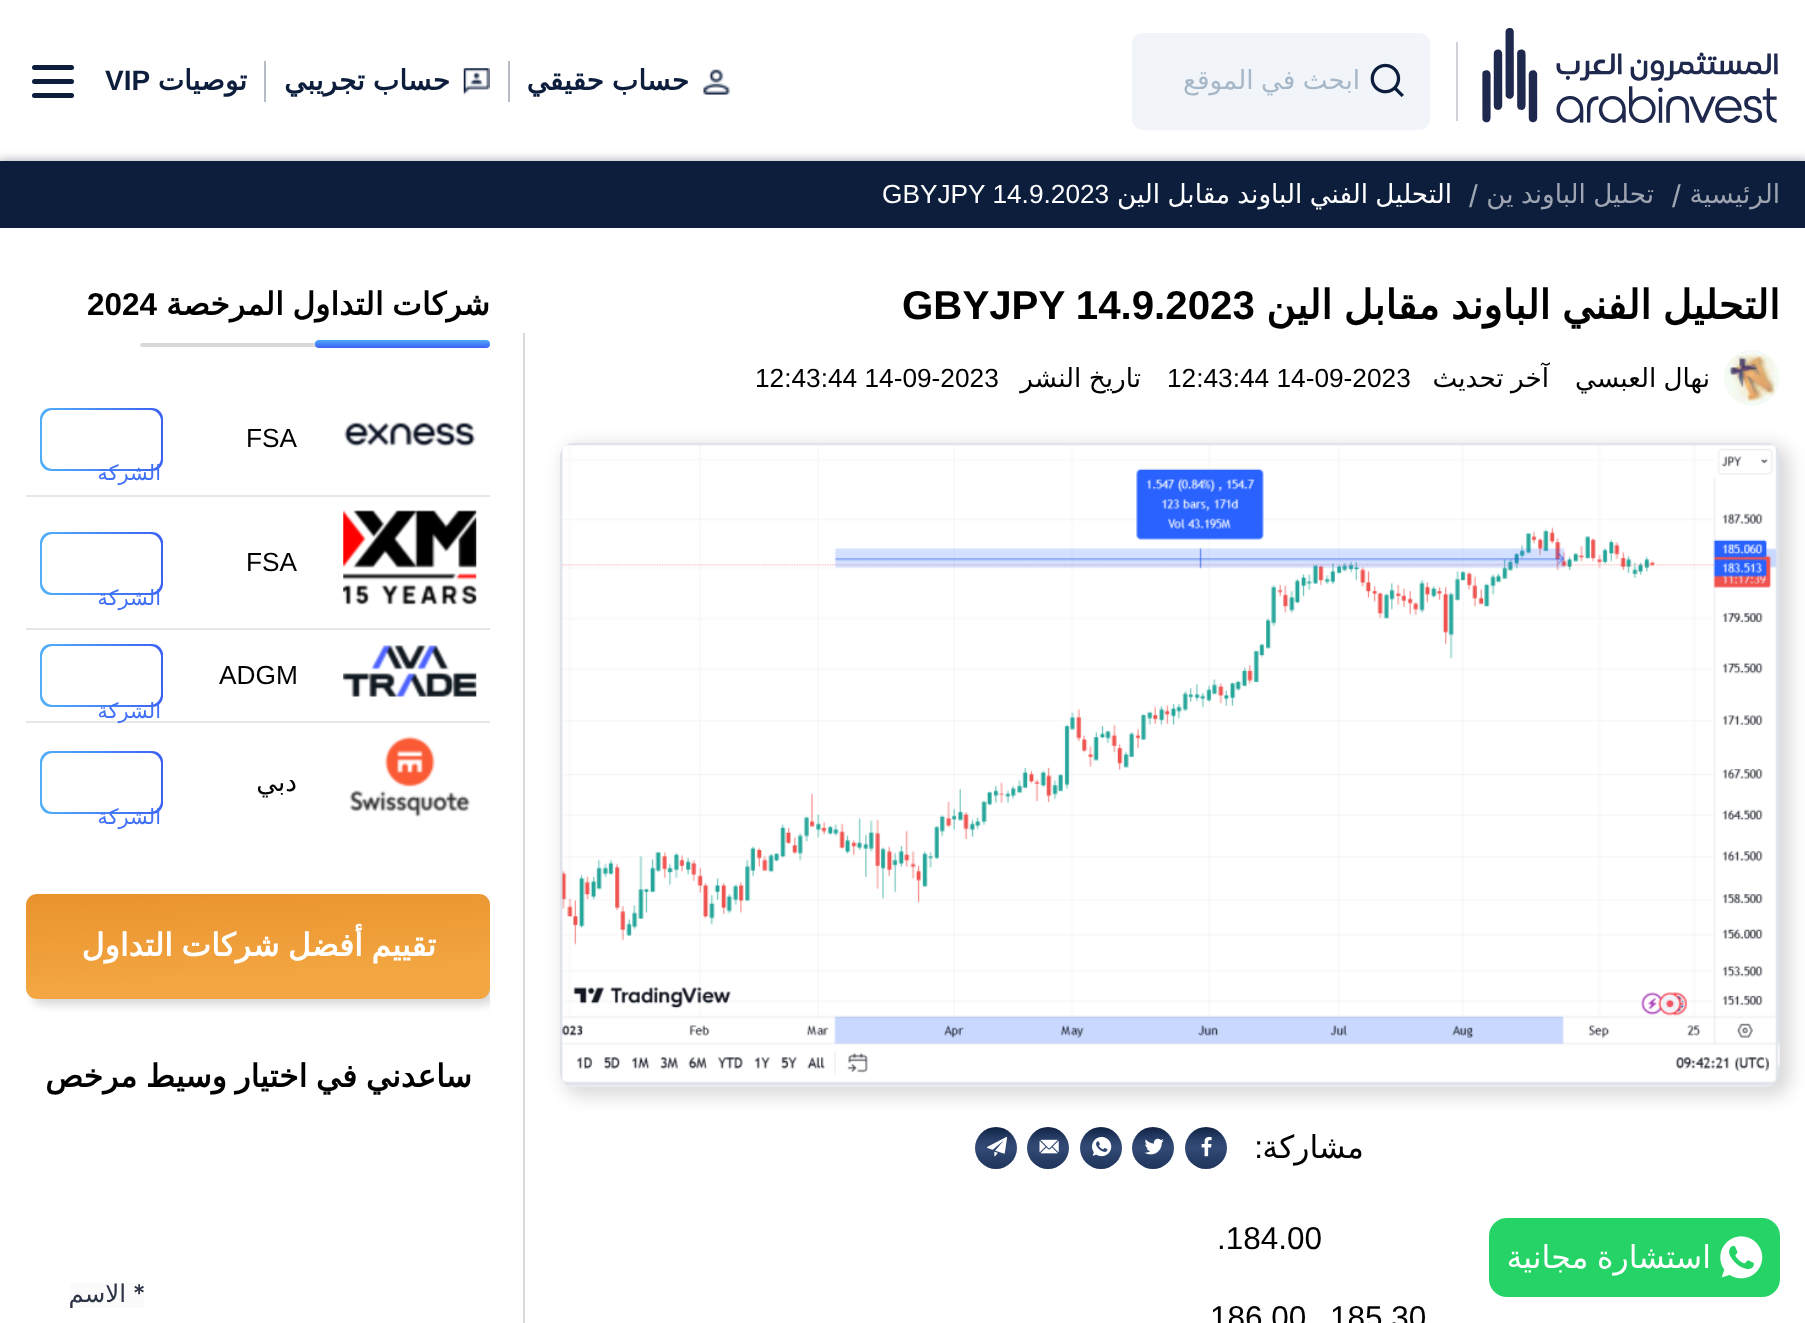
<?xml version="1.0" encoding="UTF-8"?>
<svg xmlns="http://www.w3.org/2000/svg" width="1805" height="1323">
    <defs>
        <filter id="blur1" x="-50%" y="-200%" width="200%" height="500%"><feGaussianBlur stdDeviation="6"/></filter>
        <filter id="blur2" x="-50%" y="-200%" width="200%" height="500%"><feGaussianBlur stdDeviation="9"/></filter>
        <linearGradient id="g1" gradientUnits="userSpaceOnUse" x1="1206" y1="1127" x2="1206" y2="1183"><stop offset="0" stop-color="#112345"/><stop offset="0.17" stop-color="#233960"/><stop offset="0.25" stop-color="#2C436D"/><stop offset="0.37" stop-color="#334A76"/><stop offset="0.55" stop-color="#283F68"/><stop offset="1" stop-color="#15294D"/></linearGradient>
        <linearGradient id="g2" gradientUnits="userSpaceOnUse" x1="1153" y1="1127" x2="1153" y2="1183"><stop offset="0" stop-color="#112345"/><stop offset="0.17" stop-color="#233960"/><stop offset="0.25" stop-color="#2C436D"/><stop offset="0.37" stop-color="#334A76"/><stop offset="0.55" stop-color="#283F68"/><stop offset="1" stop-color="#15294D"/></linearGradient>
        <linearGradient id="g3" gradientUnits="userSpaceOnUse" x1="1101" y1="1127" x2="1101" y2="1183"><stop offset="0" stop-color="#112345"/><stop offset="0.17" stop-color="#233960"/><stop offset="0.25" stop-color="#2C436D"/><stop offset="0.37" stop-color="#334A76"/><stop offset="0.55" stop-color="#283F68"/><stop offset="1" stop-color="#15294D"/></linearGradient>
        <linearGradient id="g4" gradientUnits="userSpaceOnUse" x1="1048" y1="1127" x2="1048" y2="1183"><stop offset="0" stop-color="#112345"/><stop offset="0.17" stop-color="#233960"/><stop offset="0.25" stop-color="#2C436D"/><stop offset="0.37" stop-color="#334A76"/><stop offset="0.55" stop-color="#283F68"/><stop offset="1" stop-color="#15294D"/></linearGradient>
        <linearGradient id="g5" gradientUnits="userSpaceOnUse" x1="996" y1="1127" x2="996" y2="1183"><stop offset="0" stop-color="#112345"/><stop offset="0.17" stop-color="#233960"/><stop offset="0.25" stop-color="#2C436D"/><stop offset="0.37" stop-color="#334A76"/><stop offset="0.55" stop-color="#283F68"/><stop offset="1" stop-color="#15294D"/></linearGradient>
        <linearGradient id="g6" gradientUnits="userSpaceOnUse" x1="403" y1="348" x2="403" y2="339"><stop offset="0" stop-color="#3C60F5"/><stop offset="1" stop-color="#52B3F9"/></linearGradient>
        <linearGradient id="g7" gradientUnits="userSpaceOnUse" x1="163" y1="439" x2="34" y2="439"><stop offset="0" stop-color="#3C60F5"/><stop offset="1" stop-color="#52B3F9"/></linearGradient>
        <linearGradient id="g8" gradientUnits="userSpaceOnUse" x1="163" y1="564" x2="34" y2="564"><stop offset="0" stop-color="#3C60F5"/><stop offset="1" stop-color="#52B3F9"/></linearGradient>
        <linearGradient id="g9" gradientUnits="userSpaceOnUse" x1="163" y1="676" x2="34" y2="676"><stop offset="0" stop-color="#3C60F5"/><stop offset="1" stop-color="#52B3F9"/></linearGradient>
        <linearGradient id="g10" gradientUnits="userSpaceOnUse" x1="163" y1="782" x2="34" y2="782"><stop offset="0" stop-color="#3C60F5"/><stop offset="1" stop-color="#52B3F9"/></linearGradient>
        <clipPath id="clip1"><rect x="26" y="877" width="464" height="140"/></clipPath>
        <filter id="blur3" x="-50%" y="-200%" width="200%" height="500%"><feGaussianBlur stdDeviation="4.5"/></filter>
        <linearGradient id="g11" gradientUnits="userSpaceOnUse" x1="262" y1="1011" x2="255" y2="882"><stop offset="0.24" stop-color="#F3A641"/><stop offset="0.98" stop-color="#E9932F"/></linearGradient>
    </defs>
    <rect width="100%" height="100%" fill="#FFFFFF"/>
    <image x="1482" y="28" width="296" height="95" href="img_01.png"/>
    <rect x="1456" y="42" width="2" height="79" fill="#CFD2D8"/>
    <rect x="1132" y="33" width="298" height="97" rx="11" fill="#F1F5F9"/>
    <image x="1370" y="63" width="34" height="34" href="img_02.png"/>
    <text x="1360" y="89" word-spacing="-1" font-family="DejaVu Sans" font-size="26.25" direction="rtl" fill="#A6B7C8">ابحث في الموقع</text>
    <rect x="508" y="61" width="2" height="41" fill="#B6BCC5"/>
    <image x="703" y="69" width="27" height="26" href="img_03.png"/>
    <text x="689" y="90" word-spacing="-1" font-family="DejaVu Sans" font-size="28" font-weight="700" direction="rtl" fill="#0D1E3D">حساب حقيقي</text>
    <rect x="264" y="61" width="2" height="41" fill="#B6BCC5"/>
    <image x="463" y="68" width="27" height="27" href="img_04.png"/>
    <text x="450" y="90" word-spacing="-1" font-family="DejaVu Sans" font-size="28" font-weight="700" direction="rtl" fill="#0D1E3D">حساب تجريبي</text>
    <text x="247" y="90" font-family="DejaVu Sans" font-size="28" font-weight="700" direction="rtl" fill="#0D1E3D">توصيات</text>
    <text x="105" y="90" font-family="Liberation Sans" font-size="28" font-weight="700" fill="#0D1E3D">VIP</text>
    <rect x="32" y="79" width="42" height="5" rx="2.5" fill="#0D1E3D"/>
    <rect x="32" y="65" width="42" height="5" rx="2.5" fill="#0D1E3D"/>
    <rect x="32" y="93" width="42" height="5" rx="2.5" fill="#0D1E3D"/>
    <rect x="-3" y="163" width="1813" height="7" fill="#011324" fill-opacity="0.6" filter="url(#blur1)"/>
    <rect x="0" y="161" width="1805" height="67" fill="#0D1E3D"/>
    <text x="1780" y="203" font-family="DejaVu Sans" font-size="26.25" direction="rtl" fill="#9EA5B1">الرئيسية</text>
    <text x="1672" y="207" font-family="Liberation Sans" font-size="31.5" fill="#9EA5B1">/</text>
    <text x="1654" y="203" word-spacing="-1" font-family="DejaVu Sans" font-size="26.25" direction="rtl" fill="#9EA5B1">تحليل الباوند ين</text>
    <text x="1469" y="207" font-family="Liberation Sans" font-size="31.5" fill="#9EA5B1">/</text>
    <text x="1452" y="203" word-spacing="-1" font-family="DejaVu Sans" font-size="26.25" direction="rtl" fill="#FFFFFF">التحليل الفني الباوند مقابل الين</text>
    <text x="882" y="203" font-family="Liberation Sans" font-size="26.25" fill="#FFFFFF">GBYJPY 14.9.2023</text>
    <text x="1780" y="319" word-spacing="-1.5" font-family="DejaVu Sans" font-size="40.25" font-weight="700" direction="rtl" fill="#000000">التحليل الفني الباوند مقابل الين</text>
    <text x="902" y="319" font-family="Liberation Sans" font-size="40.25" font-weight="700" fill="#000000">GBYJPY 14.9.2023</text>
    <image x="1724" y="350" width="56" height="56" href="img_05.png"/>
    <text x="1710" y="387" word-spacing="-1" font-family="DejaVu Sans" font-size="26.25" direction="rtl" fill="#000000">نهال العبسي</text>
    <text x="1549" y="387" word-spacing="-1" font-family="DejaVu Sans" font-size="26.25" direction="rtl" fill="#000000">آخر تحديث</text>
    <text x="1167" y="387" font-family="Liberation Sans" font-size="26.25" fill="#000000">12:43:44 14-09-2023</text>
    <text x="1141" y="387" word-spacing="-1" font-family="DejaVu Sans" font-size="26.25" direction="rtl" fill="#000000">تاريخ النشر</text>
    <text x="755" y="387" font-family="Liberation Sans" font-size="26.25" fill="#000000">12:43:44 14-09-2023</text>
    <rect x="564" y="445" width="1226" height="651" rx="18" fill="#000000" fill-opacity="0.15" filter="url(#blur2)"/>
    <image x="560" y="443" width="1220" height="644" href="img_06.png"/>
    <text x="1364" y="1158" font-family="DejaVu Sans" font-size="31.5" direction="rtl" fill="#000000">مشاركة</text>
    <text x="1263" y="1158" font-family="Liberation Sans" font-size="31.5" direction="rtl" fill="#000000">:</text>
    <circle cx="1206" cy="1148" r="21" fill="url(#g1)"/>
    <image x="1201" y="1136" width="11" height="21" href="img_07.png"/>
    <circle cx="1153" cy="1148" r="21" fill="url(#g2)"/>
    <image x="1144" y="1138" width="20" height="17" href="img_08.png"/>
    <circle cx="1101" cy="1148" r="21" fill="url(#g3)"/>
    <image x="1092" y="1137" width="20" height="20" href="img_09.png"/>
    <circle cx="1048" cy="1148" r="21" fill="url(#g4)"/>
    <image x="1039" y="1139" width="20" height="15" href="img_10.png"/>
    <circle cx="996" cy="1148" r="21" fill="url(#g5)"/>
    <image x="987" y="1137" width="21" height="20" href="img_11.png"/>
    <text x="1217" y="1249" font-family="Liberation Sans" font-size="31.5" fill="#000000">.184.00</text>
    <text x="1330" y="1328" font-family="Liberation Sans" font-size="31.5" fill="#000000">185.30</text>
    <text x="1210" y="1328" font-family="Liberation Sans" font-size="31.5" fill="#000000">186.00</text>
    <rect x="523" y="333" width="2" height="990" fill="#D9D9D9"/>
    <text x="490" y="315" word-spacing="-1.5" font-family="DejaVu Sans" font-size="31.5" font-weight="700" direction="rtl" fill="#000000">شركات التداول المرخصة</text>
    <text x="87" y="315" font-family="Liberation Sans" font-size="31.5" font-weight="700" fill="#000000">2024</text>
    <rect x="140" y="343" width="350" height="4" rx="2" fill="#D9D9D9"/>
    <rect x="315" y="340" width="175" height="8" rx="4" fill="url(#g6)"/>
    <rect x="26" y="495" width="464" height="2" fill="#E6E6E6"/>
    <image x="344" y="422" width="132" height="25" href="img_12.png"/>
    <text x="246" y="447" font-family="Liberation Sans" font-size="26.25" fill="#000000">FSA</text>
    <rect x="40" y="408" width="123" height="63" rx="11" fill="url(#g7)"/>
    <rect x="42" y="410" width="119" height="59" rx="11" fill="#FFFFFF"/>
    <text x="161" y="480" font-family="DejaVu Sans" font-size="21" direction="rtl" fill="#4070F6">الشركة</text>
    <rect x="26" y="628" width="464" height="2" fill="#E6E6E6"/>
    <image x="343" y="510" width="134" height="95" href="img_13.png"/>
    <text x="246" y="571" font-family="Liberation Sans" font-size="26.25" fill="#000000">FSA</text>
    <rect x="40" y="532" width="123" height="63" rx="11" fill="url(#g8)"/>
    <rect x="42" y="534" width="119" height="59" rx="11" fill="#FFFFFF"/>
    <text x="161" y="605" font-family="DejaVu Sans" font-size="21" direction="rtl" fill="#4070F6">الشركة</text>
    <rect x="26" y="721" width="464" height="2" fill="#E6E6E6"/>
    <image x="343" y="645" width="134" height="52" href="img_14.png"/>
    <text x="219" y="684" font-family="Liberation Sans" font-size="26.25" fill="#000000">ADGM</text>
    <rect x="40" y="644" width="123" height="63" rx="11" fill="url(#g9)"/>
    <rect x="42" y="646" width="119" height="59" rx="11" fill="#FFFFFF"/>
    <text x="161" y="718" font-family="DejaVu Sans" font-size="21" direction="rtl" fill="#4070F6">الشركة</text>
    <image x="349" y="736" width="122" height="81" href="img_15.png"/>
    <text x="297" y="791" font-family="DejaVu Sans" font-size="26.25" direction="rtl" fill="#000000">دبي</text>
    <rect x="40" y="751" width="123" height="63" rx="11" fill="url(#g10)"/>
    <rect x="42" y="753" width="119" height="59" rx="11" fill="#FFFFFF"/>
    <text x="161" y="824" font-family="DejaVu Sans" font-size="21" direction="rtl" fill="#4070F6">الشركة</text>
    <g clip-path="url(#clip1)">
        <rect x="32" y="900" width="463" height="105" rx="11" fill="#000000" fill-opacity="0.15" filter="url(#blur3)"/>
    </g>
    <rect x="26" y="894" width="464" height="105" rx="11" fill="url(#g11)"/>
    <text x="436" y="956" word-spacing="-1.5" font-family="DejaVu Sans" font-size="31.5" font-weight="700" direction="rtl" fill="#FFFFFF">تقييم أفضل شركات التداول</text>
    <text x="472" y="1087" word-spacing="-1.5" font-family="DejaVu Sans" font-size="31.5" font-weight="700" direction="rtl" fill="#000000">ساعدني في اختيار وسيط مرخص</text>
    <image x="70" y="1283" width="74" height="25" href="img_16.png"/>
    <rect x="1489" y="1218" width="291" height="79" rx="18" fill="#25D366"/>
    <image x="1720" y="1236" width="43" height="43" href="img_17.png"/>
    <text x="1711" y="1268" word-spacing="-1.5" font-family="DejaVu Sans" font-size="31.5" direction="rtl" fill="#FFFFFF">استشارة مجانية</text>
</svg>
